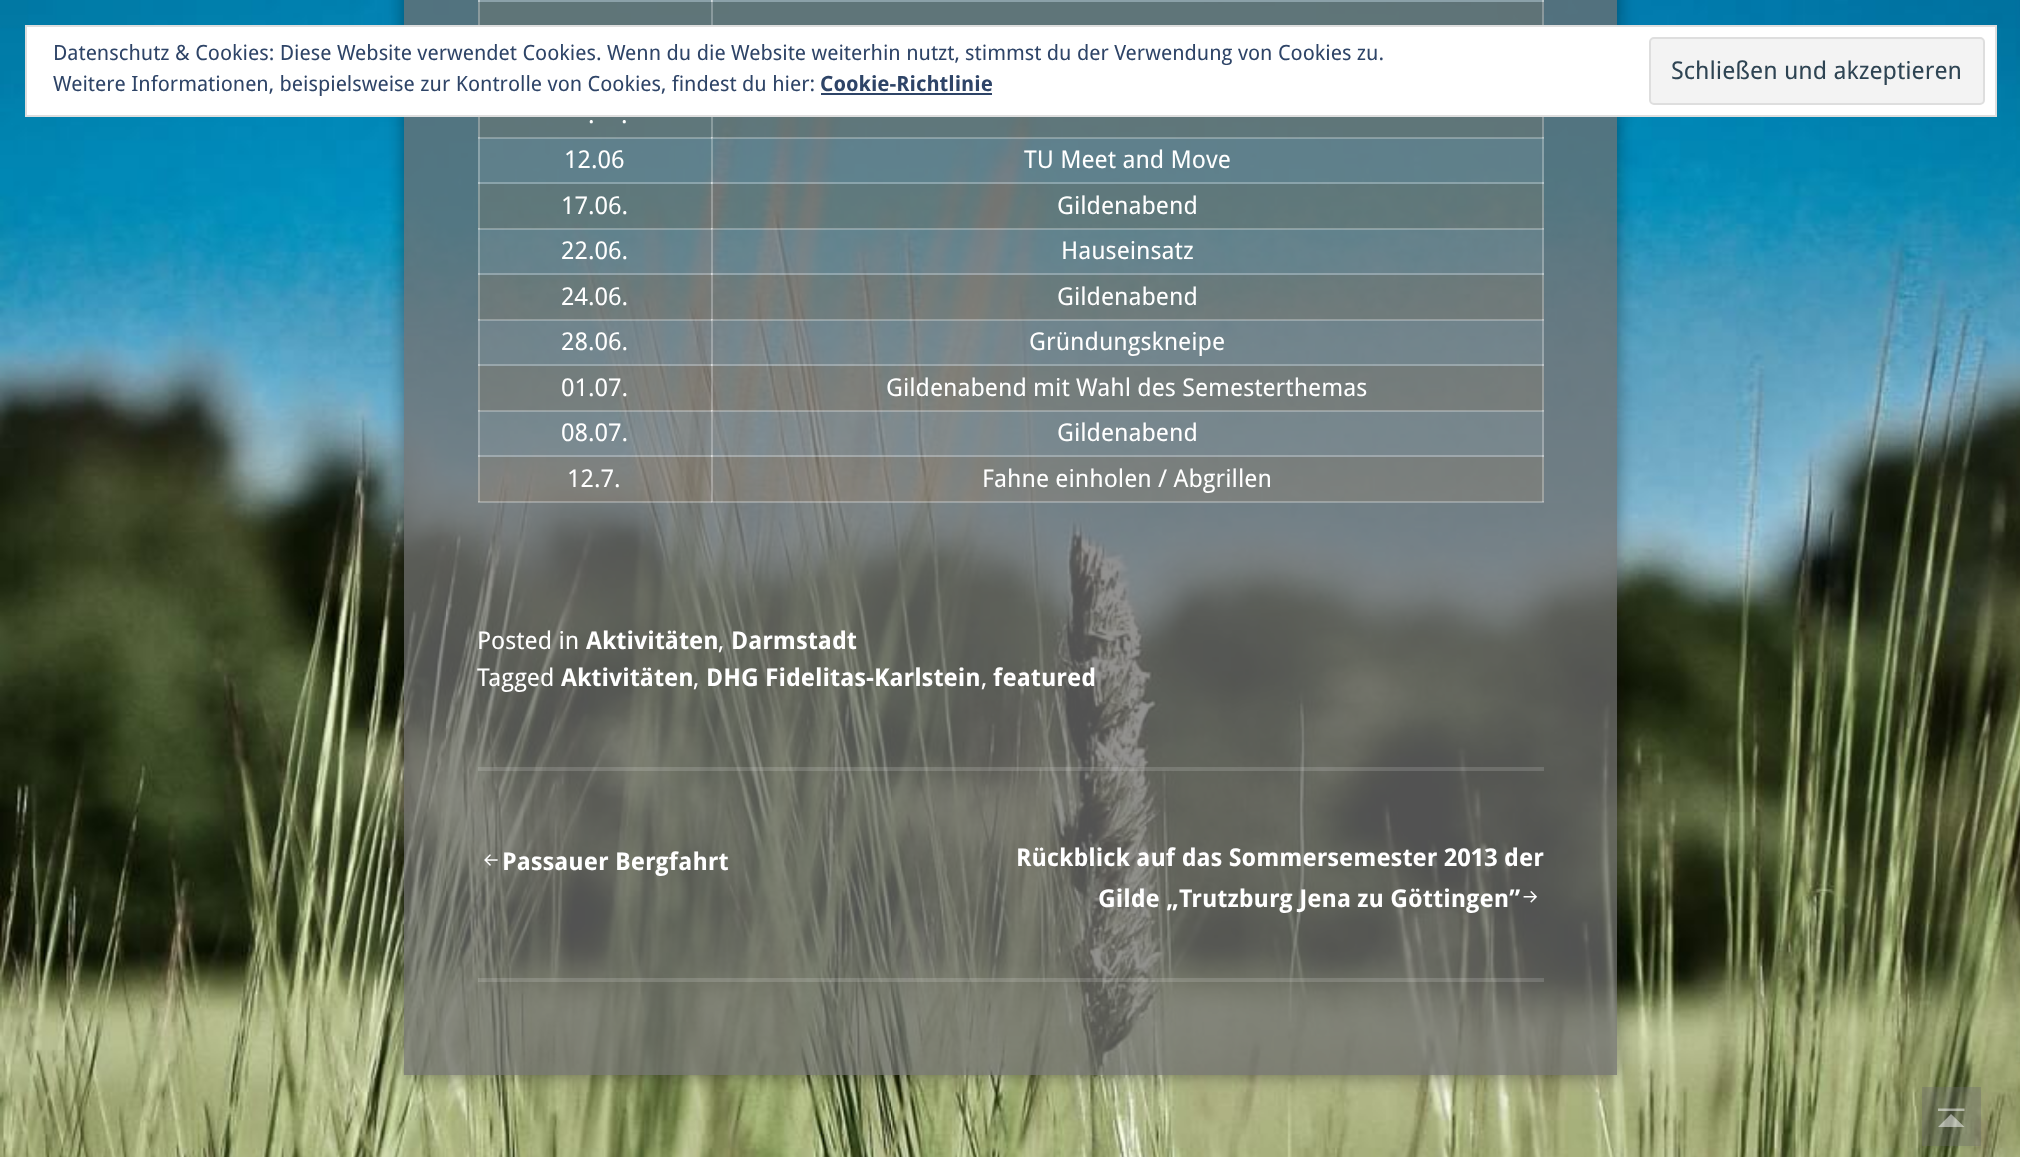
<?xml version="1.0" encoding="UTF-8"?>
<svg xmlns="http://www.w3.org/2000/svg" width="2020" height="1157">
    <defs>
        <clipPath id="clip1"><path d="M 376 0 H 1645 V 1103 H 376 Z M 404 -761 H 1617 V 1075 H 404 Z" clip-rule="evenodd"/></clipPath>
        <filter id="blur1" x="-50%" y="-200%" width="200%" height="500%"><feGaussianBlur stdDeviation="9"/></filter>
    </defs>
    <rect width="100%" height="100%" fill="#FFFFFF"/>
    <image x="0" y="0" width="2020" height="1157" href="img_01.png"/>
    <g clip-path="url(#clip1)">
        <rect x="404" y="-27" width="1213" height="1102" fill="#000000" fill-opacity="0.4" filter="url(#blur1)"/>
    </g>
    <rect x="404" y="0" width="1213" height="1075" fill="#6D6D6D" fill-opacity="0.75"/>
    <rect x="478" y="0" width="1066" height="2" fill="#607E89"/>
    <rect x="478" y="2" width="1066" height="23" fill="#FF8B27" fill-opacity="0.08"/>
    <rect x="478" y="117" width="1066" height="21" fill="#FF8B27" fill-opacity="0.08"/>
    <rect x="478" y="138" width="1066" height="46" fill="#FFFFFF" fill-opacity="0.08"/>
    <rect x="478" y="184" width="1066" height="45" fill="#FF8B27" fill-opacity="0.08"/>
    <rect x="478" y="229" width="1066" height="46" fill="#FFFFFF" fill-opacity="0.08"/>
    <rect x="478" y="275" width="1066" height="45" fill="#FF8B27" fill-opacity="0.08"/>
    <rect x="478" y="320" width="1066" height="46" fill="#FFFFFF" fill-opacity="0.08"/>
    <rect x="478" y="366" width="1066" height="45" fill="#FF8B27" fill-opacity="0.08"/>
    <rect x="478" y="411" width="1066" height="46" fill="#FFFFFF" fill-opacity="0.08"/>
    <rect x="478" y="457" width="1066" height="45" fill="#FF8B27" fill-opacity="0.08"/>
    <rect x="1542" y="0" width="2" height="502" fill="#FFFFFF" fill-opacity="0.15"/>
    <rect x="478" y="501" width="1066" height="2" fill="#FFFFFF" fill-opacity="0.15"/>
    <rect x="478" y="0" width="2" height="502" fill="#FFFFFF" fill-opacity="0.15"/>
    <rect x="26" y="26" width="1970" height="90" fill="#FFFFFF" stroke="#DEDEDE" stroke-width="2"/>
    <text font-family="Droid Sans" font-size="21" fill="#2E4467">
        <tspan x="53" y="60">Datenschutz &amp; Cookies: Diese Website verwendet Cookies. Wenn du die Website weiterhin nutzt, stimmst du der Verwendung von Cookies zu.</tspan>
        <tspan x="53" y="91">Weitere Informationen, beispielsweise zur Kontrolle von Cookies, findest du hier:</tspan>
    </text>
    <text x="820" y="91" font-family="Droid Sans" font-size="21" font-weight="700" fill="#2E4467">Cookie-Richtlinie</text>
    <rect x="821" y="93" width="171" height="2" fill="#2E4467"/>
    <rect x="1650" y="38" width="334" height="66" rx="4" fill="#F3F3F3" stroke="#DEDEDE" stroke-width="2"/>
    <text x="1671" y="79" font-family="Droid Sans" font-size="24.5" fill="#2E4453">Schließen und akzeptieren</text>
    <rect x="478" y="767" width="1066" height="4" fill="#FFFFFF" fill-opacity="0.15"/>
    <rect x="711" y="0" width="833" height="2" fill="#FFFFFF" fill-opacity="0.15"/>
    <rect x="1542" y="0" width="2" height="25" fill="#FFFFFF" fill-opacity="0.15"/>
    <rect x="1542" y="0" width="2" height="2" fill="#ACBCC1"/>
    <rect x="711" y="0" width="2" height="25" fill="#FFFFFF" fill-opacity="0.15"/>
    <rect x="478" y="0" width="234" height="2" fill="#FFFFFF" fill-opacity="0.15"/>
    <rect x="711" y="0" width="2" height="25" fill="#FFFFFF" fill-opacity="0.15"/>
    <rect x="711" y="0" width="833" height="2" fill="#FFFFFF" fill-opacity="0.15"/>
    <rect x="711" y="0" width="2" height="2" fill="#FFFFFF" fill-opacity="0.15"/>
    <rect x="711" y="0" width="2" height="2" fill="#FFFFFF" fill-opacity="0.15"/>
    <rect x="478" y="0" width="2" height="25" fill="#FFFFFF" fill-opacity="0.15"/>
    <rect x="478" y="0" width="234" height="2" fill="#FFFFFF" fill-opacity="0.15"/>
    <rect x="478" y="0" width="2" height="2" fill="#B8C6CB"/>
    <rect x="711" y="137" width="833" height="2" fill="#FFFFFF" fill-opacity="0.15"/>
    <rect x="711" y="182" width="833" height="2" fill="#FFFFFF" fill-opacity="0.15"/>
    <rect x="711" y="228" width="833" height="2" fill="#FFFFFF" fill-opacity="0.15"/>
    <rect x="711" y="273" width="833" height="2" fill="#FFFFFF" fill-opacity="0.15"/>
    <rect x="711" y="319" width="833" height="2" fill="#FFFFFF" fill-opacity="0.15"/>
    <rect x="711" y="364" width="833" height="2" fill="#FFFFFF" fill-opacity="0.15"/>
    <rect x="711" y="410" width="833" height="2" fill="#FFFFFF" fill-opacity="0.15"/>
    <rect x="711" y="455" width="833" height="2" fill="#FFFFFF" fill-opacity="0.15"/>
    <rect x="1542" y="455" width="2" height="47" fill="#FFFFFF" fill-opacity="0.15"/>
    <rect x="1542" y="410" width="2" height="47" fill="#FFFFFF" fill-opacity="0.15"/>
    <rect x="1542" y="364" width="2" height="47" fill="#FFFFFF" fill-opacity="0.15"/>
    <rect x="1542" y="319" width="2" height="47" fill="#FFFFFF" fill-opacity="0.15"/>
    <rect x="1542" y="273" width="2" height="47" fill="#FFFFFF" fill-opacity="0.15"/>
    <rect x="1542" y="228" width="2" height="47" fill="#FFFFFF" fill-opacity="0.15"/>
    <rect x="1542" y="182" width="2" height="47" fill="#FFFFFF" fill-opacity="0.15"/>
    <rect x="1542" y="137" width="2" height="47" fill="#FFFFFF" fill-opacity="0.15"/>
    <rect x="1542" y="117" width="2" height="21" fill="#FFFFFF" fill-opacity="0.15"/>
    <rect x="711" y="501" width="833" height="2" fill="#FFFFFF" fill-opacity="0.15"/>
    <rect x="711" y="455" width="2" height="47" fill="#FFFFFF" fill-opacity="0.15"/>
    <rect x="478" y="455" width="234" height="2" fill="#FFFFFF" fill-opacity="0.15"/>
    <rect x="711" y="455" width="2" height="47" fill="#FFFFFF" fill-opacity="0.15"/>
    <rect x="711" y="455" width="833" height="2" fill="#FFFFFF" fill-opacity="0.15"/>
    <rect x="711" y="410" width="2" height="47" fill="#FFFFFF" fill-opacity="0.15"/>
    <rect x="478" y="410" width="234" height="2" fill="#FFFFFF" fill-opacity="0.15"/>
    <rect x="711" y="410" width="2" height="47" fill="#FFFFFF" fill-opacity="0.15"/>
    <rect x="711" y="410" width="833" height="2" fill="#FFFFFF" fill-opacity="0.15"/>
    <rect x="711" y="364" width="2" height="47" fill="#FFFFFF" fill-opacity="0.15"/>
    <rect x="478" y="364" width="234" height="2" fill="#FFFFFF" fill-opacity="0.15"/>
    <rect x="711" y="364" width="2" height="47" fill="#FFFFFF" fill-opacity="0.15"/>
    <rect x="711" y="364" width="833" height="2" fill="#FFFFFF" fill-opacity="0.15"/>
    <rect x="711" y="319" width="2" height="47" fill="#FFFFFF" fill-opacity="0.15"/>
    <rect x="478" y="319" width="234" height="2" fill="#FFFFFF" fill-opacity="0.15"/>
    <rect x="711" y="319" width="2" height="47" fill="#FFFFFF" fill-opacity="0.15"/>
    <rect x="711" y="319" width="833" height="2" fill="#FFFFFF" fill-opacity="0.15"/>
    <rect x="711" y="273" width="2" height="47" fill="#FFFFFF" fill-opacity="0.15"/>
    <rect x="478" y="273" width="234" height="2" fill="#FFFFFF" fill-opacity="0.15"/>
    <rect x="711" y="273" width="2" height="47" fill="#FFFFFF" fill-opacity="0.15"/>
    <rect x="711" y="273" width="833" height="2" fill="#FFFFFF" fill-opacity="0.15"/>
    <rect x="711" y="228" width="2" height="47" fill="#FFFFFF" fill-opacity="0.15"/>
    <rect x="478" y="228" width="234" height="2" fill="#FFFFFF" fill-opacity="0.15"/>
    <rect x="711" y="228" width="2" height="47" fill="#FFFFFF" fill-opacity="0.15"/>
    <rect x="711" y="228" width="833" height="2" fill="#FFFFFF" fill-opacity="0.15"/>
    <rect x="711" y="182" width="2" height="47" fill="#FFFFFF" fill-opacity="0.15"/>
    <rect x="478" y="182" width="234" height="2" fill="#FFFFFF" fill-opacity="0.15"/>
    <rect x="711" y="182" width="2" height="47" fill="#FFFFFF" fill-opacity="0.15"/>
    <rect x="711" y="182" width="833" height="2" fill="#FFFFFF" fill-opacity="0.15"/>
    <rect x="711" y="137" width="2" height="47" fill="#FFFFFF" fill-opacity="0.15"/>
    <rect x="478" y="137" width="234" height="2" fill="#FFFFFF" fill-opacity="0.15"/>
    <rect x="711" y="137" width="2" height="47" fill="#FFFFFF" fill-opacity="0.15"/>
    <rect x="711" y="137" width="833" height="2" fill="#FFFFFF" fill-opacity="0.15"/>
    <rect x="711" y="117" width="2" height="21" fill="#FFFFFF" fill-opacity="0.15"/>
    <rect x="711" y="117" width="2" height="21" fill="#FFFFFF" fill-opacity="0.15"/>
    <rect x="478" y="501" width="234" height="2" fill="#FFFFFF" fill-opacity="0.15"/>
    <rect x="478" y="455" width="2" height="47" fill="#FFFFFF" fill-opacity="0.15"/>
    <rect x="478" y="455" width="234" height="2" fill="#FFFFFF" fill-opacity="0.15"/>
    <rect x="478" y="410" width="2" height="47" fill="#FFFFFF" fill-opacity="0.15"/>
    <rect x="478" y="410" width="234" height="2" fill="#FFFFFF" fill-opacity="0.15"/>
    <rect x="478" y="364" width="2" height="47" fill="#FFFFFF" fill-opacity="0.15"/>
    <rect x="478" y="364" width="234" height="2" fill="#FFFFFF" fill-opacity="0.15"/>
    <rect x="478" y="319" width="2" height="47" fill="#FFFFFF" fill-opacity="0.15"/>
    <rect x="478" y="319" width="234" height="2" fill="#FFFFFF" fill-opacity="0.15"/>
    <rect x="478" y="273" width="2" height="47" fill="#FFFFFF" fill-opacity="0.15"/>
    <rect x="478" y="273" width="234" height="2" fill="#FFFFFF" fill-opacity="0.15"/>
    <rect x="478" y="228" width="2" height="47" fill="#FFFFFF" fill-opacity="0.15"/>
    <rect x="478" y="228" width="234" height="2" fill="#FFFFFF" fill-opacity="0.15"/>
    <rect x="478" y="182" width="2" height="47" fill="#FFFFFF" fill-opacity="0.15"/>
    <rect x="478" y="182" width="234" height="2" fill="#FFFFFF" fill-opacity="0.15"/>
    <rect x="478" y="137" width="2" height="47" fill="#FFFFFF" fill-opacity="0.15"/>
    <rect x="478" y="137" width="234" height="2" fill="#FFFFFF" fill-opacity="0.15"/>
    <rect x="478" y="117" width="2" height="21" fill="#FFFFFF" fill-opacity="0.15"/>
    <text x="588" y="123" font-family="Droid Sans" font-size="24.5" fill="#FFFFFF">.</text>
    <text x="621" y="123" font-family="Droid Sans" font-size="24.5" fill="#FFFFFF">.</text>
    <text x="564" y="168" font-family="Droid Sans" font-size="24.5" fill="#FFFFFF">12.06</text>
    <text x="1024" y="168" font-family="Droid Sans" font-size="24.5" fill="#FFFFFF">TU Meet and Move</text>
    <text x="561" y="214" font-family="Droid Sans" font-size="24.5" fill="#FFFFFF">17.06.</text>
    <text x="1057" y="214" font-family="Droid Sans" font-size="24.5" fill="#FFFFFF">Gildenabend</text>
    <text x="561" y="259" font-family="Droid Sans" font-size="24.5" fill="#FFFFFF">22.06.</text>
    <text x="1061" y="259" font-family="Droid Sans" font-size="24.5" fill="#FFFFFF">Hauseinsatz</text>
    <text x="561" y="305" font-family="Droid Sans" font-size="24.5" fill="#FFFFFF">24.06.</text>
    <text x="1057" y="305" font-family="Droid Sans" font-size="24.5" fill="#FFFFFF">Gildenabend</text>
    <text x="561" y="350" font-family="Droid Sans" font-size="24.5" fill="#FFFFFF">28.06.</text>
    <text x="1029" y="350" font-family="Droid Sans" font-size="24.5" fill="#FFFFFF">Gründungskneipe</text>
    <text x="561" y="396" font-family="Droid Sans" font-size="24.5" fill="#FFFFFF">01.07.</text>
    <text x="886" y="396" font-family="Droid Sans" font-size="24.5" fill="#FFFFFF">Gildenabend mit Wahl des Semesterthemas</text>
    <text x="561" y="441" font-family="Droid Sans" font-size="24.5" fill="#FFFFFF">08.07.</text>
    <text x="1057" y="441" font-family="Droid Sans" font-size="24.5" fill="#FFFFFF">Gildenabend</text>
    <text x="567" y="487" font-family="Droid Sans" font-size="24.5" fill="#FFFFFF">12.7.</text>
    <text x="982" y="487" font-family="Droid Sans" font-size="24.5" fill="#FFFFFF">Fahne einholen / Abgrillen</text>
    <text x="477" y="649" font-family="Droid Sans" font-size="24.5" fill="#FFFFFF">Posted in</text>
    <text x="586" y="649" font-family="Droid Sans" font-size="24.5" font-weight="700" fill="#FFFFFF">Aktivitäten</text>
    <text x="718" y="649" font-family="Droid Sans" font-size="24.5" fill="#FFFFFF">,</text>
    <text x="731" y="649" font-family="Droid Sans" font-size="24.5" font-weight="700" fill="#FFFFFF">Darmstadt</text>
    <text x="477" y="686" font-family="Droid Sans" font-size="24.5" fill="#FFFFFF">Tagged</text>
    <text x="561" y="686" font-family="Droid Sans" font-size="24.5" font-weight="700" fill="#FFFFFF">Aktivitäten</text>
    <text x="693" y="686" font-family="Droid Sans" font-size="24.5" fill="#FFFFFF">,</text>
    <text x="706" y="686" font-family="Droid Sans" font-size="24.5" font-weight="700" fill="#FFFFFF">DHG Fidelitas-Karlstein</text>
    <text x="981" y="686" font-family="Droid Sans" font-size="24.5" fill="#FFFFFF">,</text>
    <text x="993" y="686" font-family="Droid Sans" font-size="24.5" font-weight="700" fill="#FFFFFF">featured</text>
    <rect x="478" y="978" width="1066" height="4" fill="#FFFFFF" fill-opacity="0.15"/>
    <image x="484" y="854" width="14" height="12" href="img_02.png"/>
    <text x="502" y="870" font-family="Droid Sans" font-size="24.5" font-weight="700" fill="#FFFFFF">Passauer Bergfahrt</text>
    <text x="1016" y="866" font-family="Droid Sans" font-size="24.5" font-weight="700" fill="#FFFFFF">Rückblick auf das Sommersemester 2013 der</text>
    <text x="1098" y="907" font-family="Droid Sans" font-size="24.5" font-weight="700" fill="#FFFFFF">Gilde „Trutzburg Jena zu Göttingen”</text>
    <image x="1523" y="891" width="15" height="12" href="img_03.png"/>
    <rect x="1922" y="1087" width="59" height="59" fill="#6D6D6D" fill-opacity="0.38"/>
    <path d="M 1938 1127 L 1951 1114 L 1964.5 1127 Z M 1938 1108.5 H 1964.5 V 1111 H 1938 Z" fill="#FFFFFF" fill-opacity="0.5"/>
</svg>
